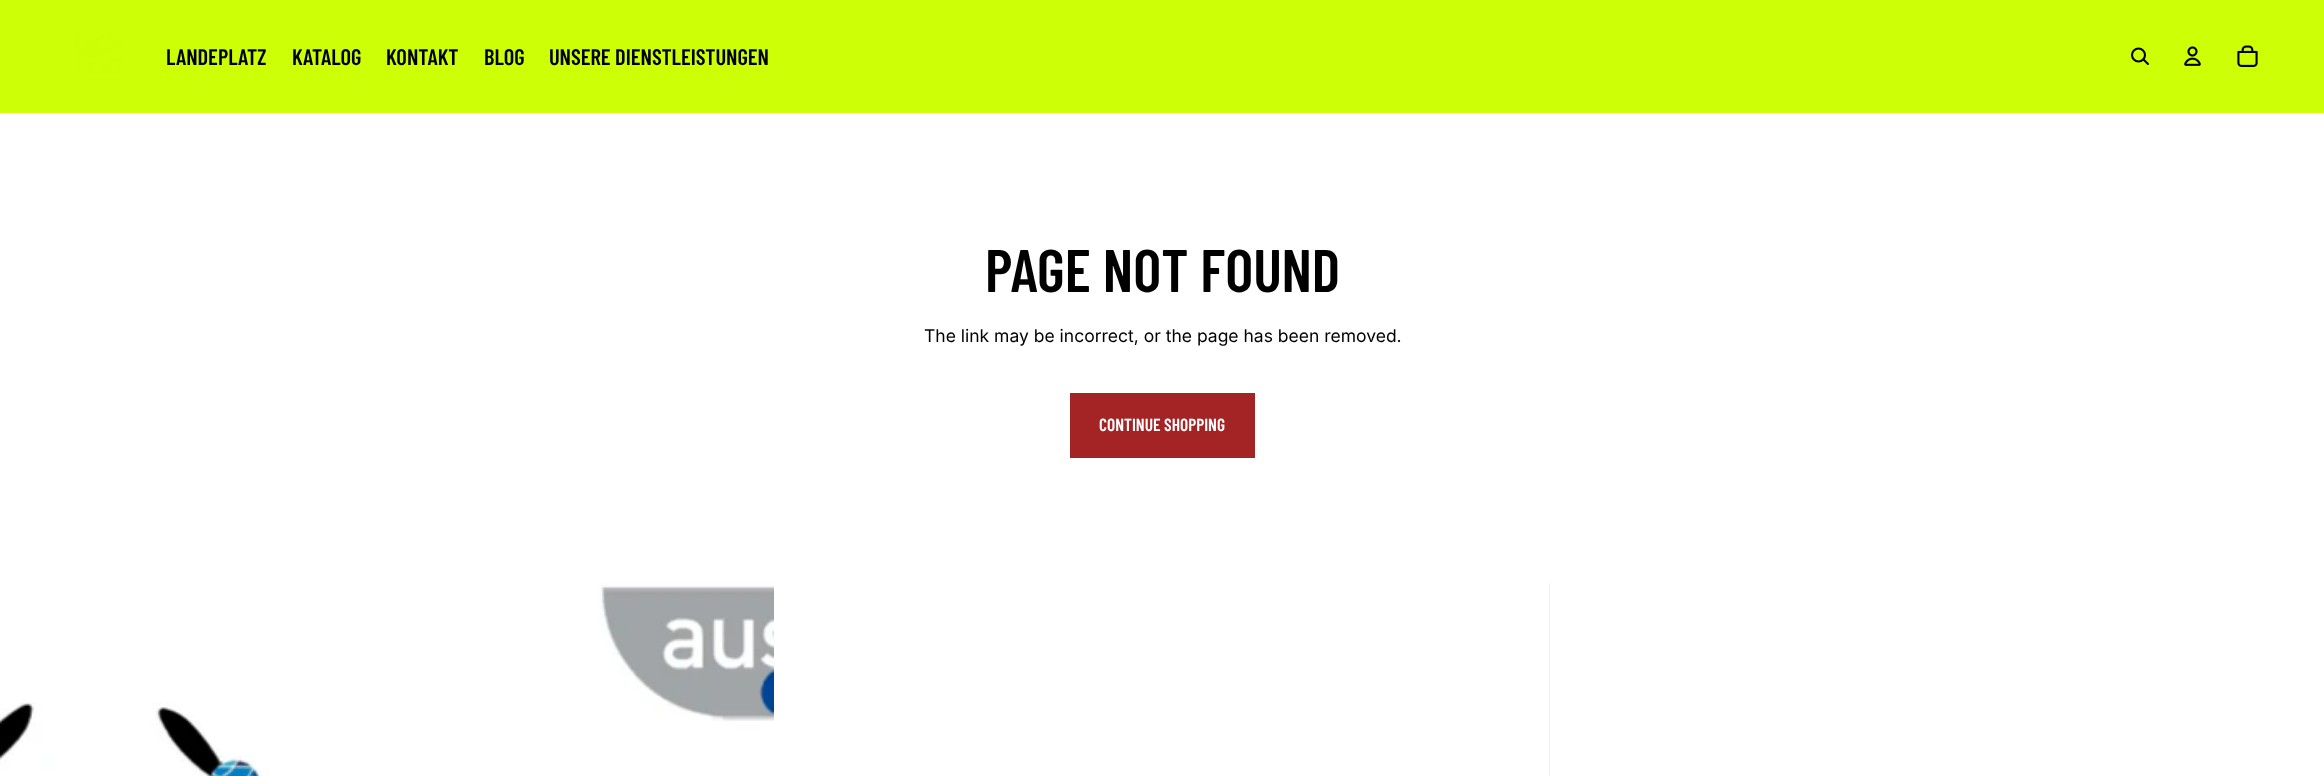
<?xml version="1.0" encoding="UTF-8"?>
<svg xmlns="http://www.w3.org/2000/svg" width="2324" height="776">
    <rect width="100%" height="100%" fill="#FFFFFF"/>
    <rect x="0" y="0" width="2324" height="113" fill="#CDFF07"/>
    <image x="76" y="34" width="49" height="40" href="img_01.png"/>
    <text x="166" y="65" font-family="Barlow Condensed" font-size="22.5" font-weight="600" fill="#000000">LANDEPLATZ</text>
    <text x="292" y="65" font-family="Barlow Condensed" font-size="22.5" font-weight="600" fill="#000000">KATALOG</text>
    <text x="386" y="65" font-family="Barlow Condensed" font-size="22.5" font-weight="600" fill="#000000">KONTAKT</text>
    <text x="484" y="65" font-family="Barlow Condensed" font-size="22.5" font-weight="600" fill="#000000">BLOG</text>
    <text x="549" y="65" font-family="Barlow Condensed" font-size="22.5" font-weight="600" fill="#000000">UNSERE DIENSTLEISTUNGEN</text>
    <circle cx="2138.5" cy="55" r="6.5" fill="none" stroke="#000000" stroke-width="2.1"/>
    <path d="M 2143.5 59.5 L 2148 64" fill="none" stroke="#000000" stroke-width="2.1" stroke-linecap="round" stroke-linejoin="round"/>
    <image x="2184" y="46" width="17" height="20" href="img_02.png"/>
    <image x="2237" y="45" width="21" height="22" href="img_03.png"/>
    <text x="985" y="292" font-family="Barlow Condensed" font-size="60" font-weight="600" fill="#000000">PAGE NOT FOUND</text>
    <text x="924" y="342" font-family="Inter" font-size="17.5" fill="#000000">The link may be incorrect, or the page has been removed.</text>
    <rect x="1070" y="393" width="185" height="65" fill="#A42325"/>
    <text x="1099" y="431" font-family="Barlow Condensed" font-size="17.5" font-weight="600" fill="#FFFFFF">CONTINUE SHOPPING</text>
    <image x="0" y="583" width="774" height="193" href="img_04.png"/>
    <rect x="1549" y="583" width="1" height="193" fill="#F1F1F1"/>
</svg>
